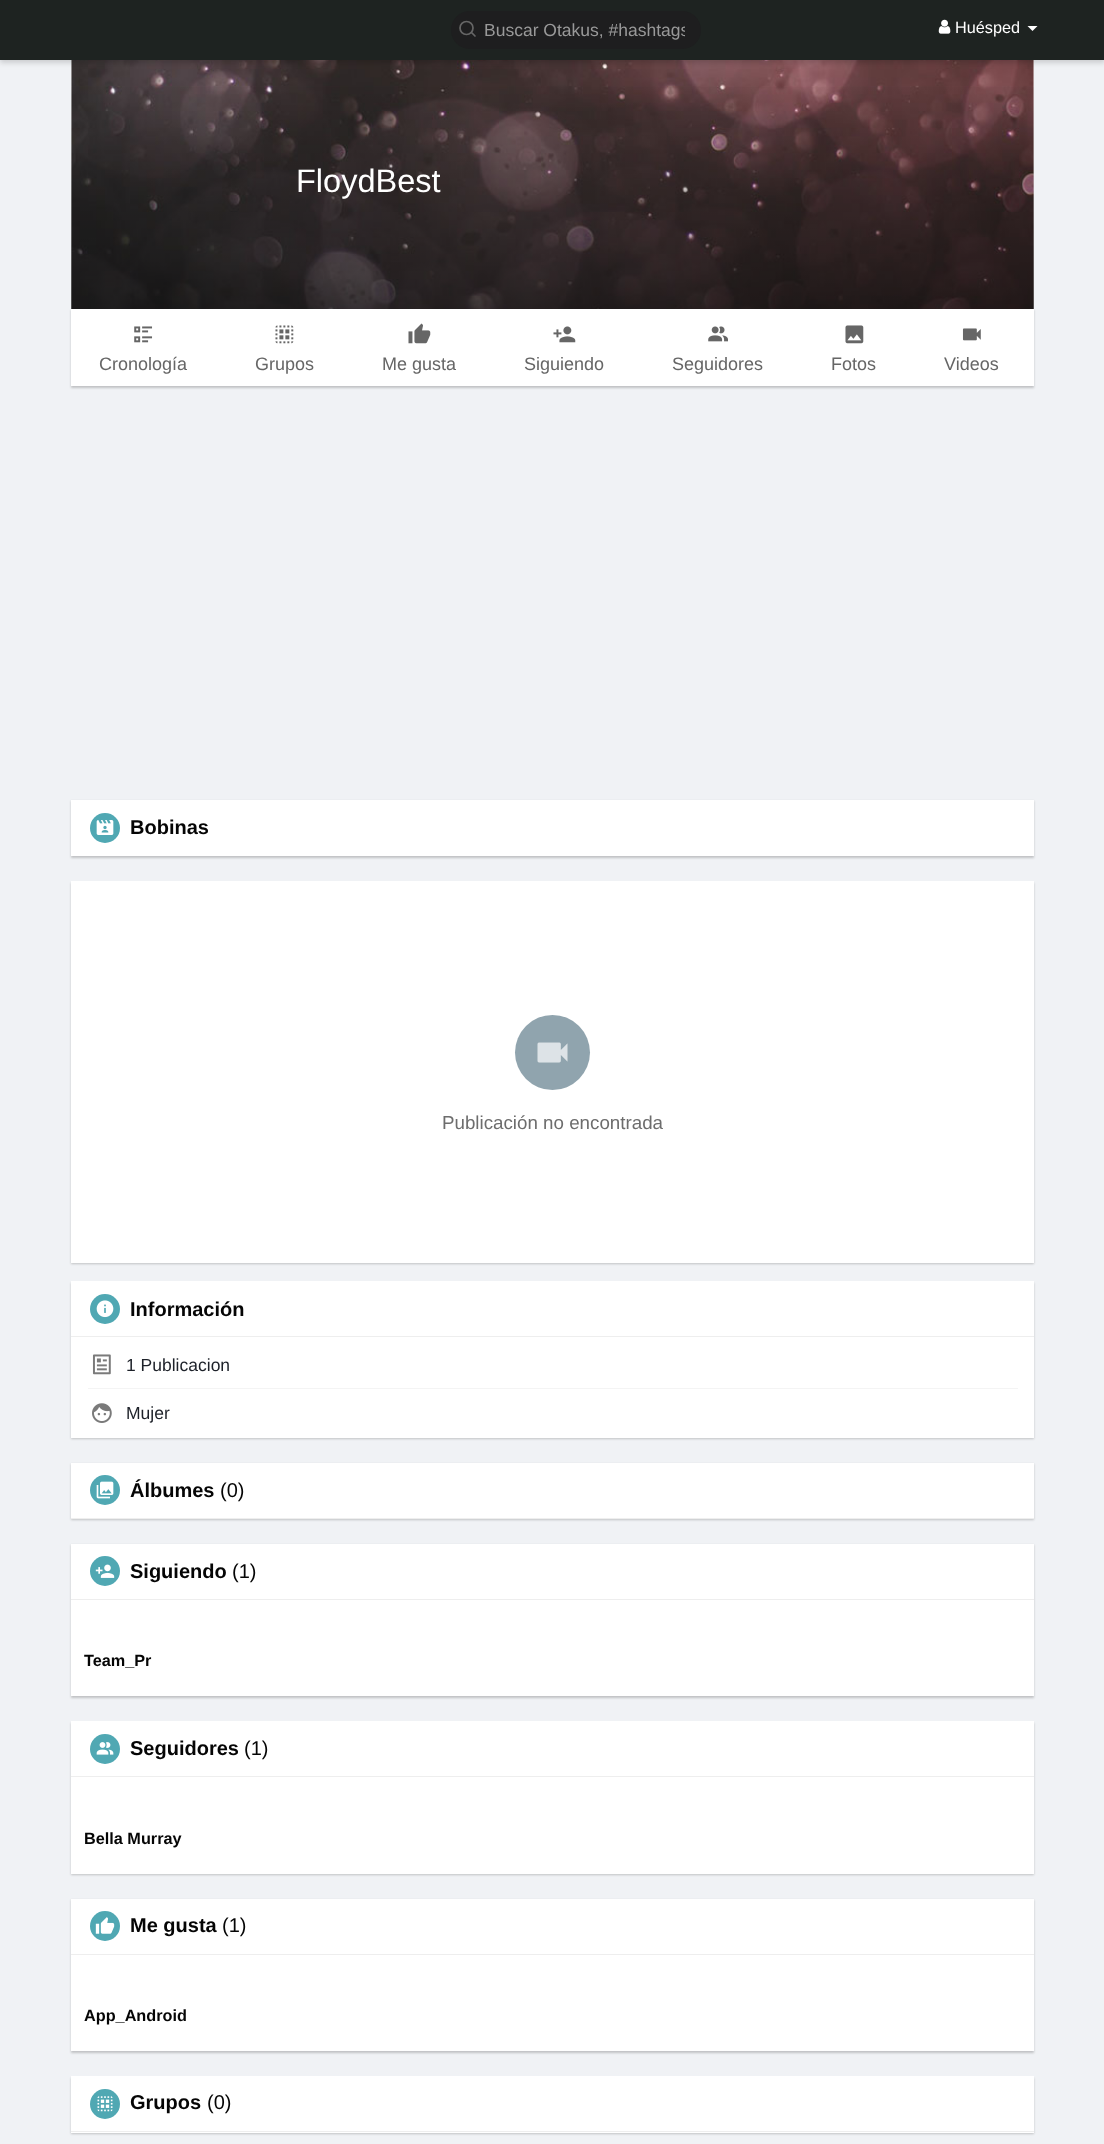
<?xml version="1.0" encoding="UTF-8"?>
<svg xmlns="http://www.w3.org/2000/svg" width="1104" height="2144">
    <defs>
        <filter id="blur1" x="-50%" y="-200%" width="200%" height="500%"><feGaussianBlur stdDeviation="2.5"/></filter>
        <clipPath id="clip1"><rect x="484" y="20" width="201" height="20"/></clipPath>
        <linearGradient id="g1" gradientUnits="userSpaceOnUse" x1="553" y1="75" x2="553" y2="325"><stop offset="0" stop-color="#000000" stop-opacity="0"/><stop offset="1" stop-color="#000000" stop-opacity="0.45"/></linearGradient>
        <filter id="blur2" x="-50%" y="-200%" width="200%" height="500%"><feGaussianBlur stdDeviation="1"/></filter>
    </defs>
    <rect width="100%" height="100%" fill="#F0F2F5"/>
    <rect x="71" y="60" width="963" height="249" fill="#FFFFFF"/>
    <image x="71" y="60" width="963" height="249" href="img_02.png"/>
    <rect x="0" y="3" width="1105" height="60" fill="#000000" fill-opacity="0.15" filter="url(#blur1)"/>
    <rect x="0" y="0" width="1104" height="60" fill="#1E2321"/>
    <rect x="451" y="11" width="250" height="38" rx="19" fill="#1E1E1F"/>
    <circle cx="466.5" cy="28" r="6.5" fill="none" stroke="#666666" stroke-width="1.7"/>
    <path d="M 475 36 L 471.5 32.5" fill="none" stroke="#666666" stroke-width="1.7" stroke-linecap="round" stroke-linejoin="round"/>
    <g clip-path="url(#clip1)">
        <text x="484" y="36" font-family="Liberation Sans" font-size="17.5" fill="#999999">Buscar Otakus, #hashtags</text>
    </g>
    <image x="938" y="19" width="13" height="15" href="img_01.png"/>
    <text x="955" y="33" font-family="Liberation Sans" font-size="16.25" fill="#FFFFFF">Huésped</text>
    <path d="M 1027.5 26 H 1037.5 L 1032.5 31 Z" fill="#FFFFFF"/>
    <rect x="71" y="87" width="963" height="222" fill="url(#g1)"/>
    <text x="296" y="192" font-family="Liberation Sans" font-size="32.5" fill="#FFFFFF">FloydBest</text>
    <rect x="71" y="310" width="963" height="78" fill="#000000" fill-opacity="0.2" filter="url(#blur2)"/>
    <rect x="71" y="309" width="963" height="77" fill="#FFFFFF"/>
    <image x="134" y="326" width="19" height="17" href="img_03.png"/>
    <text x="99" y="370" font-family="Liberation Sans" font-size="18" fill="#666666">Cronología</text>
    <image x="275" y="325" width="19" height="19" href="img_04.png"/>
    <text x="255" y="370" font-family="Liberation Sans" font-size="18" fill="#666666">Grupos</text>
    <image x="408" y="323" width="23" height="21" href="img_05.png"/>
    <text x="382" y="370" font-family="Liberation Sans" font-size="18" fill="#666666">Me gusta</text>
    <image x="553" y="326" width="23" height="17" href="img_06.png"/>
    <text x="524" y="370" font-family="Liberation Sans" font-size="18" fill="#666666">Siguiendo</text>
    <image x="708" y="326" width="20" height="16" href="img_07.png"/>
    <text x="672" y="370" font-family="Liberation Sans" font-size="18" fill="#666666">Seguidores</text>
    <image x="845" y="325" width="19" height="19" href="img_08.png"/>
    <text x="831" y="370" font-family="Liberation Sans" font-size="18" fill="#666666">Fotos</text>
    <image x="962" y="328" width="19" height="13" href="img_09.png"/>
    <text x="944" y="370" font-family="Liberation Sans" font-size="18" fill="#666666">Videos</text>
    <rect x="71" y="801" width="963" height="57" fill="#000000" fill-opacity="0.2" filter="url(#blur2)"/>
    <rect x="71" y="800" width="963" height="56" fill="#FFFFFF"/>
    <circle cx="105" cy="828" r="15" fill="#50A8B3"/>
    <image x="96" y="820" width="18" height="15" href="img_10.png"/>
    <text x="130" y="834" font-family="Liberation Sans" font-size="20" font-weight="700" fill="#050505">Bobinas</text>
    <rect x="71" y="883" width="963" height="381" fill="#000000" fill-opacity="0.2" filter="url(#blur2)"/>
    <rect x="71" y="881" width="963" height="382" fill="#FFFFFF"/>
    <circle cx="552.5" cy="1052.5" r="37.5" fill="#90A4AE"/>
    <image x="537" y="1042" width="31" height="21" href="img_11.png"/>
    <text x="442" y="1129" font-family="Liberation Sans" font-size="18.75" fill="#6D6D6D">Publicación no encontrada</text>
    <rect x="71" y="1283" width="963" height="156" fill="#000000" fill-opacity="0.2" filter="url(#blur2)"/>
    <rect x="71" y="1281" width="963" height="157" fill="#FFFFFF"/>
    <rect x="71" y="1336" width="963" height="1" fill="#EEEEEE"/>
    <circle cx="105" cy="1309" r="15" fill="#50A8B3"/>
    <image x="96" y="1300" width="18" height="18" href="img_12.png"/>
    <text x="130" y="1316" font-family="Liberation Sans" font-size="20" font-weight="700" fill="#050505">Información</text>
    <image x="92" y="1354" width="19" height="21" href="img_13.png"/>
    <text x="126" y="1371" font-family="Liberation Sans" font-size="17.5" fill="#1D2129">1 Publicacion</text>
    <rect x="88" y="1388" width="930" height="1" fill="#F4F4F4"/>
    <image x="92" y="1403" width="20" height="20" href="img_14.png"/>
    <text x="126" y="1419" font-family="Liberation Sans" font-size="17.5" fill="#1D2129">Mujer</text>
    <rect x="71" y="1464" width="963" height="56" fill="#000000" fill-opacity="0.2" filter="url(#blur2)"/>
    <rect x="71" y="1463" width="963" height="55" fill="#FFFFFF"/>
    <rect x="71" y="1518" width="963" height="1" fill="#EEEEEE"/>
    <circle cx="105" cy="1490" r="15" fill="#50A8B3"/>
    <image x="96" y="1481" width="18" height="18" href="img_15.png"/>
    <text x="130" y="1497" font-family="Liberation Sans" font-size="20" font-weight="700" fill="#050505">Álbumes</text>
    <text x="220" y="1497" font-family="Liberation Sans" font-size="20" fill="#050505">(0)</text>
    <rect x="71" y="1545" width="963" height="153" fill="#000000" fill-opacity="0.2" filter="url(#blur2)"/>
    <rect x="71" y="1544" width="963" height="152" fill="#FFFFFF"/>
    <rect x="71" y="1599" width="963" height="1" fill="#EEEEEE"/>
    <circle cx="105" cy="1571" r="15" fill="#50A8B3"/>
    <image x="95" y="1564" width="20" height="14" href="img_16.png"/>
    <text x="130" y="1578" font-family="Liberation Sans" font-size="20" font-weight="700" fill="#050505">Siguiendo</text>
    <text x="232" y="1578" font-family="Liberation Sans" font-size="20" fill="#050505">(1)</text>
    <text x="84" y="1666" font-family="Liberation Sans" font-size="16.25" font-weight="700" fill="#050505">Team_Pr</text>
    <rect x="71" y="1723" width="963" height="152" fill="#000000" fill-opacity="0.2" filter="url(#blur2)"/>
    <rect x="71" y="1721" width="963" height="153" fill="#FFFFFF"/>
    <rect x="71" y="1776" width="963" height="1" fill="#EEEEEE"/>
    <circle cx="105" cy="1749" r="15" fill="#50A8B3"/>
    <image x="96" y="1742" width="18" height="13" href="img_17.png"/>
    <text x="130" y="1755" font-family="Liberation Sans" font-size="20" font-weight="700" fill="#050505">Seguidores</text>
    <text x="244" y="1755" font-family="Liberation Sans" font-size="20" fill="#050505">(1)</text>
    <text x="84" y="1844" font-family="Liberation Sans" font-size="16.25" font-weight="700" fill="#050505">Bella Murray</text>
    <rect x="71" y="1900" width="963" height="153" fill="#000000" fill-opacity="0.2" filter="url(#blur2)"/>
    <rect x="71" y="1899" width="963" height="152" fill="#FFFFFF"/>
    <rect x="71" y="1954" width="963" height="1" fill="#EEEEEE"/>
    <circle cx="105" cy="1926" r="15" fill="#50A8B3"/>
    <image x="95" y="1917" width="20" height="17" href="img_18.png"/>
    <text x="130" y="1932" font-family="Liberation Sans" font-size="20" font-weight="700" fill="#050505">Me gusta</text>
    <text x="222" y="1932" font-family="Liberation Sans" font-size="20" fill="#050505">(1)</text>
    <text x="84" y="2021" font-family="Liberation Sans" font-size="16.25" font-weight="700" fill="#050505">App_Android</text>
    <rect x="71" y="2078" width="963" height="56" fill="#000000" fill-opacity="0.2" filter="url(#blur2)"/>
    <rect x="71" y="2076" width="963" height="57" fill="#FFFFFF"/>
    <rect x="71" y="2131" width="963" height="1" fill="#EEEEEE"/>
    <circle cx="105" cy="2104" r="15" fill="#50A8B3"/>
    <image x="97" y="2096" width="16" height="16" href="img_19.png"/>
    <text x="130" y="2109" font-family="Liberation Sans" font-size="20" font-weight="700" fill="#050505">Grupos</text>
    <text x="207" y="2109" font-family="Liberation Sans" font-size="20" fill="#050505">(0)</text>
</svg>
